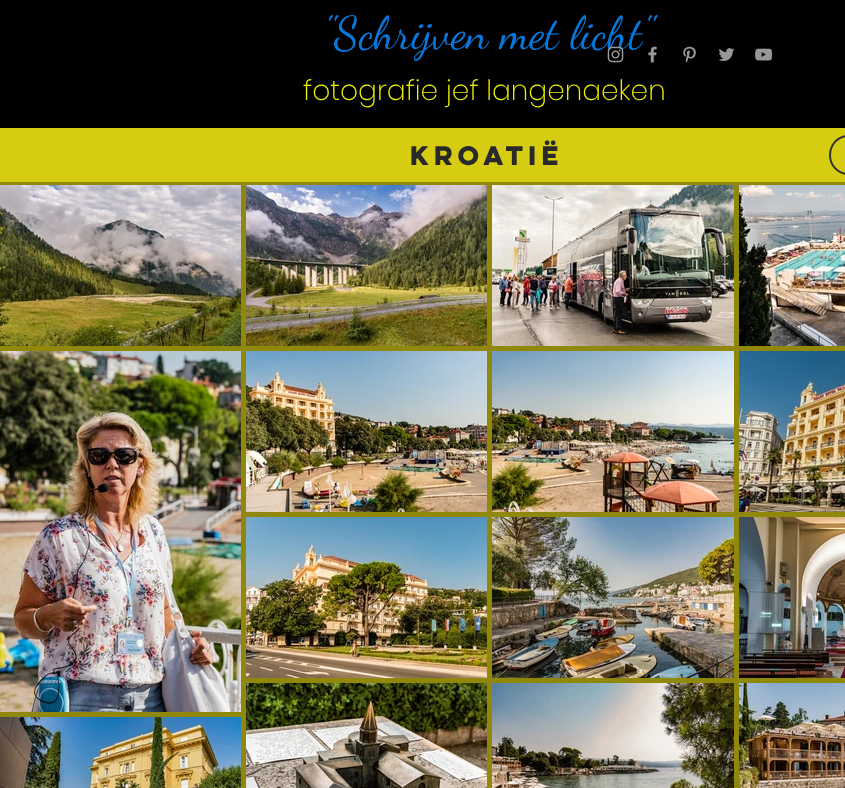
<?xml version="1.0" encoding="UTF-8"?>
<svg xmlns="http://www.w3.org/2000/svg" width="845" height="788">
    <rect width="100%" height="100%" fill="#8F880B"/>
    <rect x="0" y="0" width="845" height="128" fill="#000000"/>
    <text x="323" y="48" font-family="Dancing Script" font-size="46" fill="#0778DB">"Schrijven met licht"</text>
    <text x="303" y="100" font-family="Poppins" font-size="28" font-weight="200" fill="#EEF205">fotografie jef langenaeken</text>
    <image x="607" y="46" width="17" height="17" href="img_01.png"/>
    <image x="648" y="46" width="9" height="17" href="img_02.png"/>
    <image x="683" y="46" width="13" height="17" href="img_03.png"/>
    <image x="718" y="48" width="17" height="14" href="img_04.png"/>
    <image x="755" y="48" width="18" height="13" href="img_05.png"/>
    <rect x="0" y="128" width="845" height="54" fill="#D6CC11"/>
    <text x="410" y="165" font-family="'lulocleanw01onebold'" font-size="24" font-weight="700" fill="#292929">KROATIË</text>
    <rect x="830" y="136" width="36" height="38" rx="19" fill="none" stroke="#323232" stroke-width="2"/>
    <image x="0" y="185" width="241" height="161" href="img_06.png"/>
    <image x="246" y="185" width="241" height="161" href="img_07.png"/>
    <image x="492" y="185" width="242" height="161" href="img_08.png"/>
    <image x="739" y="185" width="106" height="161" href="img_09.png"/>
    <image x="0" y="351" width="241" height="361" href="img_10.png"/>
    <image x="246" y="351" width="241" height="161" href="img_11.png"/>
    <image x="492" y="351" width="242" height="161" href="img_12.png"/>
    <image x="739" y="351" width="106" height="161" href="img_13.png"/>
    <image x="246" y="517" width="241" height="161" href="img_14.png"/>
    <image x="492" y="517" width="242" height="161" href="img_15.png"/>
    <image x="739" y="517" width="106" height="161" href="img_16.png"/>
    <image x="0" y="717" width="241" height="71" href="img_17.png"/>
    <image x="246" y="683" width="241" height="105" href="img_18.png"/>
    <image x="492" y="683" width="242" height="105" href="img_19.png"/>
    <image x="739" y="683" width="106" height="105" href="img_20.png"/>
</svg>
